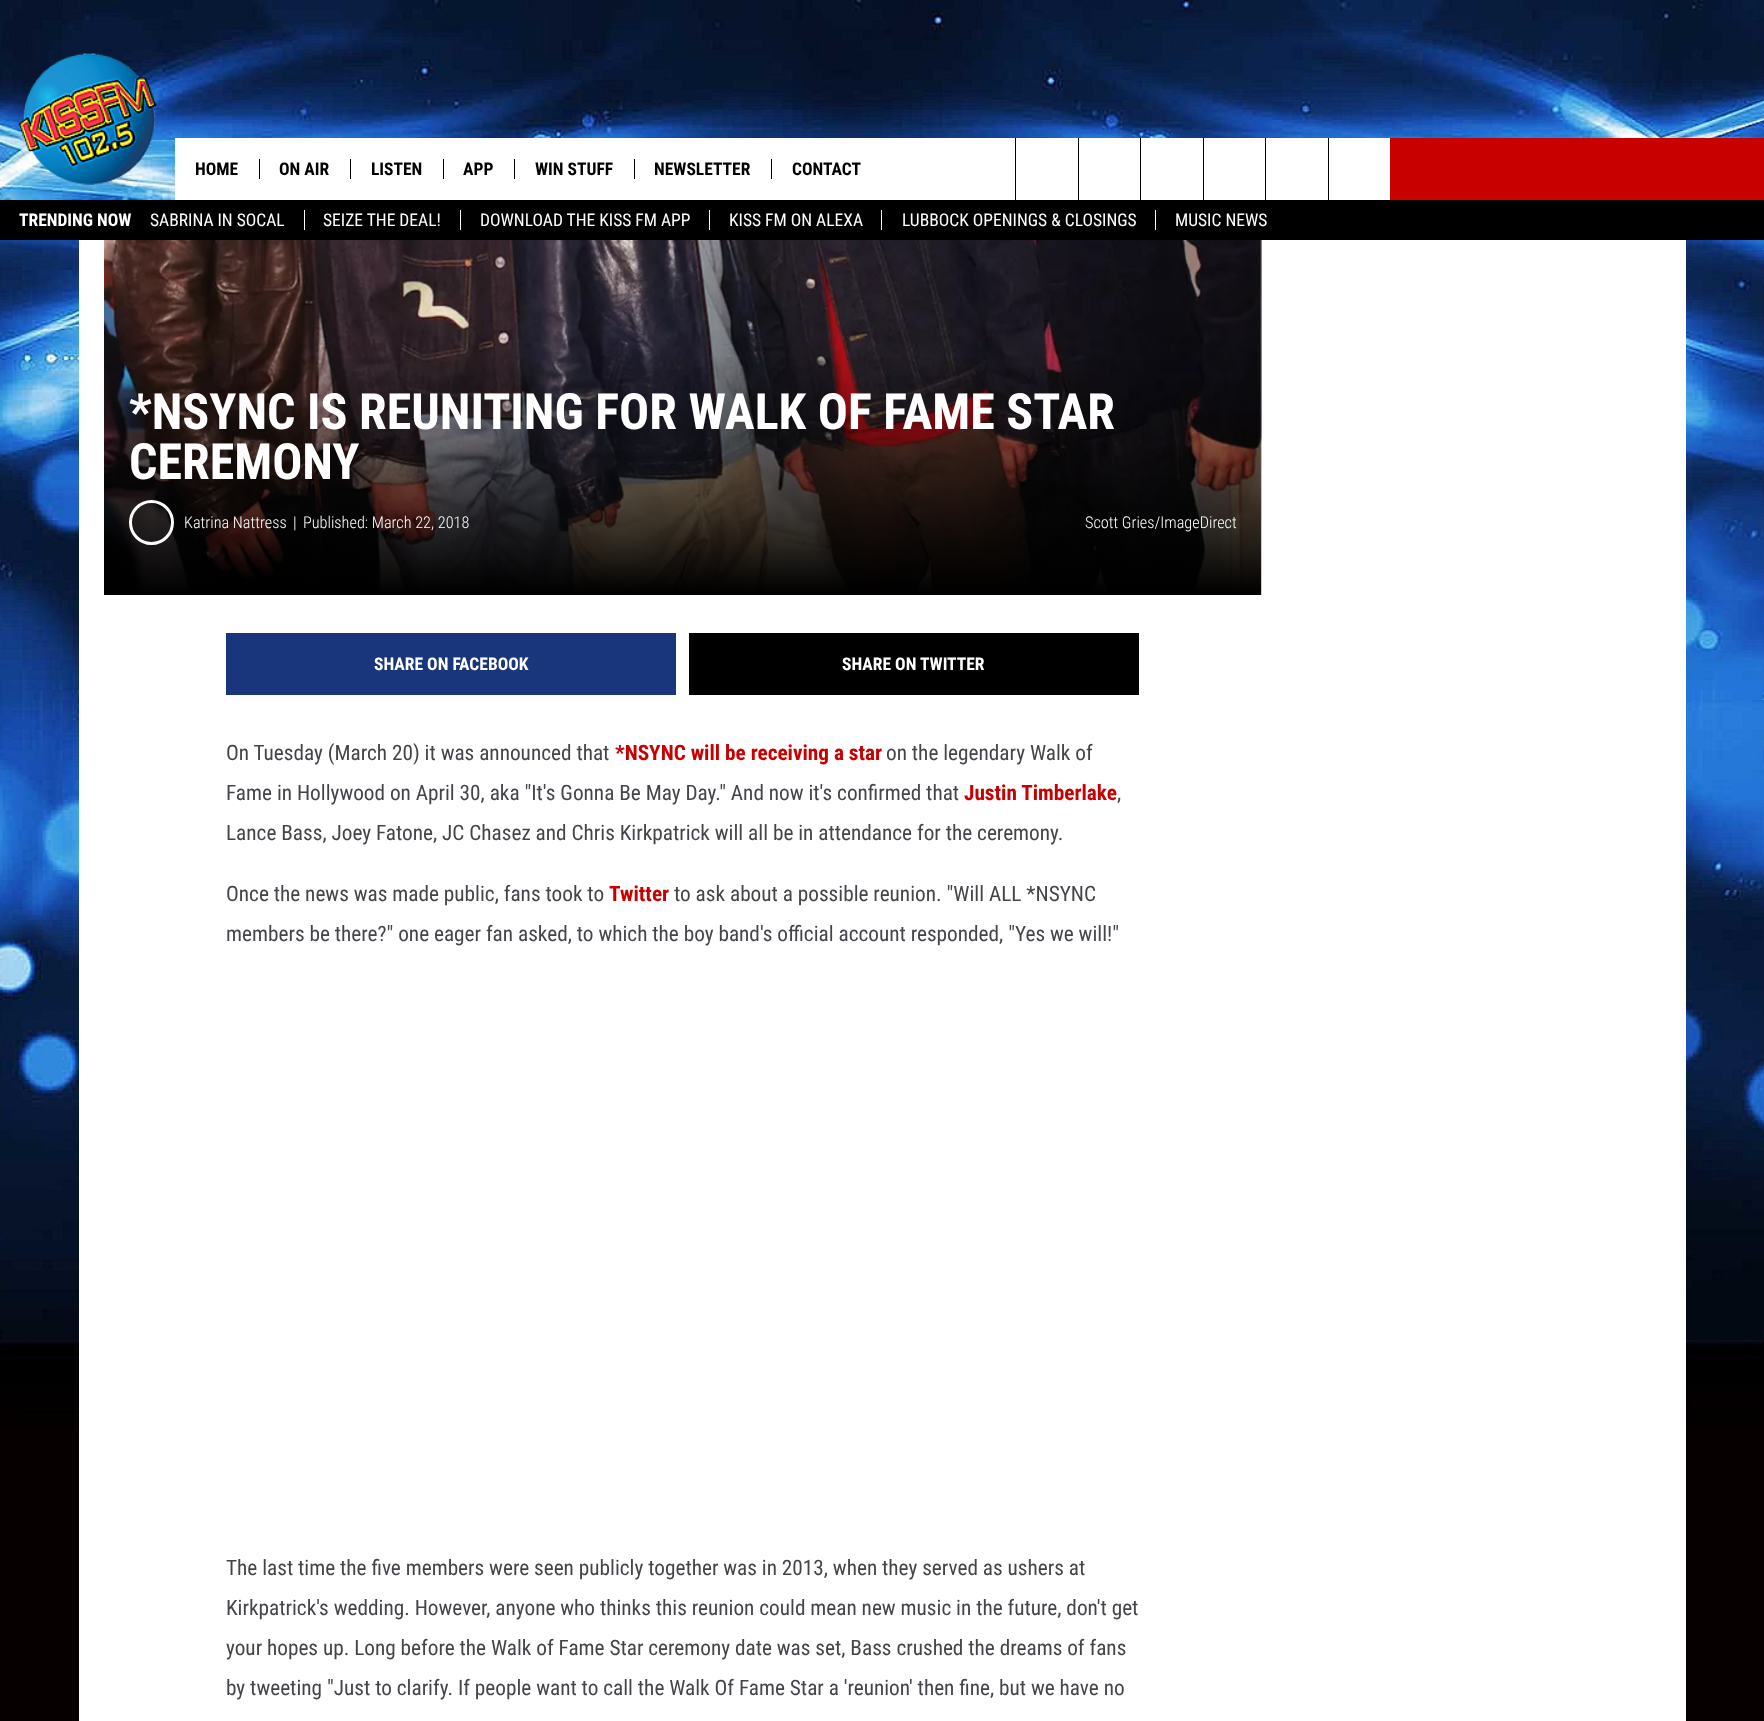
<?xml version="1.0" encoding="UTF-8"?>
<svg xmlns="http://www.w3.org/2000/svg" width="1764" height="1721">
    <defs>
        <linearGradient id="g1" gradientUnits="userSpaceOnUse" x1="683" y1="352" x2="683" y2="595"><stop offset="0" stop-color="#000000" stop-opacity="0"/><stop offset="1" stop-color="#000000"/></linearGradient>
        <radialGradient id="g2" gradientUnits="userSpaceOnUse" cx="151" cy="523" r="28"><stop offset="0.4" stop-color="#45444A" stop-opacity="0"/><stop offset="1" stop-color="#45444A" stop-opacity="0.05"/></radialGradient>
    </defs>
    <rect width="100%" height="100%" fill="#070000"/>
    <image x="0" y="240" width="1764" height="1188" href="img_01.png"/>
    <image x="0" y="0" width="1764" height="200" href="img_02.png"/>
    <image x="18" y="53" width="139" height="132" href="img_03.png"/>
    <rect x="175" y="138" width="1215" height="62" fill="#FFFFFF"/>
    <text x="195" y="175" font-family="Roboto Condensed" font-size="17.5" font-weight="700" fill="#000000">HOME</text>
    <rect x="259" y="159" width="1" height="20" fill="#000000"/>
    <text x="279" y="175" font-family="Roboto Condensed" font-size="17.5" font-weight="700" fill="#000000">ON AIR</text>
    <rect x="350" y="159" width="1" height="20" fill="#000000"/>
    <text x="371" y="175" font-family="Roboto Condensed" font-size="17.5" font-weight="700" fill="#000000">LISTEN</text>
    <rect x="443" y="159" width="1" height="20" fill="#000000"/>
    <text x="463" y="175" font-family="Roboto Condensed" font-size="17.5" font-weight="700" fill="#000000">APP</text>
    <rect x="514" y="159" width="1" height="20" fill="#000000"/>
    <text x="535" y="175" font-family="Roboto Condensed" font-size="17.5" font-weight="700" fill="#000000">WIN STUFF</text>
    <rect x="634" y="159" width="1" height="20" fill="#000000"/>
    <text x="654" y="175" font-family="Roboto Condensed" font-size="17.5" font-weight="700" fill="#000000">NEWSLETTER</text>
    <rect x="771" y="159" width="1" height="20" fill="#000000"/>
    <text x="792" y="175" font-family="Roboto Condensed" font-size="17.5" font-weight="700" fill="#000000">CONTACT</text>
    <rect x="1015" y="138" width="1" height="62" fill="#000000"/>
    <rect x="1078" y="138" width="1" height="62" fill="#000000"/>
    <rect x="1140" y="138" width="1" height="62" fill="#000000"/>
    <rect x="1203" y="138" width="1" height="62" fill="#000000"/>
    <rect x="1265" y="138" width="1" height="62" fill="#000000"/>
    <rect x="1328" y="138" width="1" height="62" fill="#000000"/>
    <rect x="1390" y="138" width="374" height="62" fill="#C90000"/>
    <rect x="0" y="200" width="1764" height="40" fill="#000000"/>
    <text x="19" y="226" font-family="Roboto Condensed" font-size="17.5" font-weight="700" fill="#FFFFFF">TRENDING NOW</text>
    <text x="150" y="226" font-family="Roboto Condensed" font-size="17.5" fill="#FFFFFF">SABRINA IN SOCAL</text>
    <text x="323" y="226" font-family="Roboto Condensed" font-size="17.5" fill="#FFFFFF">SEIZE THE DEAL!</text>
    <rect x="304" y="210" width="1" height="20" fill="#FFFFFF"/>
    <text x="480" y="226" font-family="Roboto Condensed" font-size="17.5" fill="#FFFFFF">DOWNLOAD THE KISS FM APP</text>
    <rect x="460" y="210" width="1" height="20" fill="#FFFFFF"/>
    <text x="729" y="226" font-family="Roboto Condensed" font-size="17.5" fill="#FFFFFF">KISS FM ON ALEXA</text>
    <rect x="709" y="210" width="1" height="20" fill="#FFFFFF"/>
    <text x="902" y="226" font-family="Roboto Condensed" font-size="17.5" fill="#FFFFFF">LUBBOCK OPENINGS &amp; CLOSINGS</text>
    <rect x="881" y="210" width="1" height="20" fill="#FFFFFF"/>
    <text x="1175" y="226" font-family="Roboto Condensed" font-size="17.5" fill="#FFFFFF">MUSIC NEWS</text>
    <rect x="1155" y="210" width="1" height="20" fill="#FFFFFF"/>
    <rect x="79" y="240" width="1607" height="1481" fill="#FFFFFF"/>
    <image x="104" y="240" width="1158" height="355" href="img_04.png"/>
    <rect x="104" y="357" width="1157" height="238" fill="url(#g1)"/>
    <text font-family="Roboto Condensed" font-size="50" font-weight="700" fill="#FFFFFF">
        <tspan x="129" y="429">*NSYNC IS REUNITING FOR WALK OF FAME STAR</tspan>
        <tspan x="129" y="479">CEREMONY</tspan>
    </text>
    <circle cx="151.5" cy="522.5" r="21" fill="none" stroke="#FFFFFF" stroke-width="3"/>
    <rect x="131" y="503" width="40" height="40" fill="url(#g2)"/>
    <text x="184" y="528" font-family="Roboto Condensed" font-size="16.25" font-weight="300" fill="#FFFFFF">Katrina Nattress</text>
    <text x="293" y="528" font-family="Roboto Condensed" font-size="16.25" font-weight="300" fill="#FFFFFF">|</text>
    <text x="303" y="528" font-family="Roboto Condensed" font-size="16.25" font-weight="300" fill="#FFFFFF">Published: March 22, 2018</text>
    <text x="1085" y="528" font-family="Roboto Condensed" font-size="16.25" font-weight="300" fill="#FFFFFF">Scott Gries/ImageDirect</text>
    <rect x="226" y="633" width="450" height="62" fill="#19367C"/>
    <text x="374" y="670" font-family="Roboto Condensed" font-size="17.5" font-weight="700" fill="#FFFFFF">SHARE ON FACEBOOK</text>
    <rect x="689" y="633" width="450" height="62" fill="#000000"/>
    <text x="842" y="670" font-family="Roboto Condensed" font-size="17.5" font-weight="700" fill="#FFFFFF">SHARE ON TWITTER</text>
    <text x="226" y="760" font-family="Roboto Condensed" font-size="21.25" fill="#45444A">On Tuesday (March 20) it was announced that</text>
    <text x="615" y="760" font-family="Roboto Condensed" font-size="21.25" font-weight="700" fill="#C90000">*NSYNC will be receiving a star</text>
    <text x="886" y="760" font-family="Roboto Condensed" font-size="21.25" fill="#45444A">on the legendary Walk of</text>
    <text x="226" y="800" font-family="Roboto Condensed" font-size="21.25" fill="#45444A">Fame in Hollywood on April 30, aka "It's Gonna Be May Day." And now it's confirmed that</text>
    <text x="964" y="800" font-family="Roboto Condensed" font-size="21.25" font-weight="700" fill="#C90000">Justin Timberlake</text>
    <text x="1117" y="800" font-family="Roboto Condensed" font-size="21.25" fill="#45444A">,</text>
    <text x="226" y="840" font-family="Roboto Condensed" font-size="21.25" fill="#45444A">Lance Bass, Joey Fatone, JC Chasez and Chris Kirkpatrick will all be in attendance for the ceremony.</text>
    <text x="226" y="901" font-family="Roboto Condensed" font-size="21.25" fill="#45444A">Once the news was made public, fans took to</text>
    <text x="609" y="901" font-family="Roboto Condensed" font-size="21.25" font-weight="700" fill="#C90000">Twitter</text>
    <text x="674" y="901" font-family="Roboto Condensed" font-size="21.25" fill="#45444A">to ask about a possible reunion. "Will ALL *NSYNC</text>
    <text x="226" y="941" font-family="Roboto Condensed" font-size="21.25" fill="#45444A">members be there?" one eager fan asked, to which the boy band's official account responded, "Yes we will!"</text>
    <text font-family="Roboto Condensed" font-size="21.25" fill="#45444A">
        <tspan x="226" y="1575">The last time the five members were seen publicly together was in 2013, when they served as ushers at</tspan>
        <tspan x="226" y="1615">Kirkpatrick's wedding. However, anyone who thinks this reunion could mean new music in the future, don't get</tspan>
        <tspan x="226" y="1655">your hopes up. Long before the Walk of Fame Star ceremony date was set, Bass crushed the dreams of fans</tspan>
        <tspan x="226" y="1695">by tweeting "Just to clarify. If people want to call the Walk Of Fame Star a 'reunion' then fine, but we have no</tspan>
    </text>
</svg>
